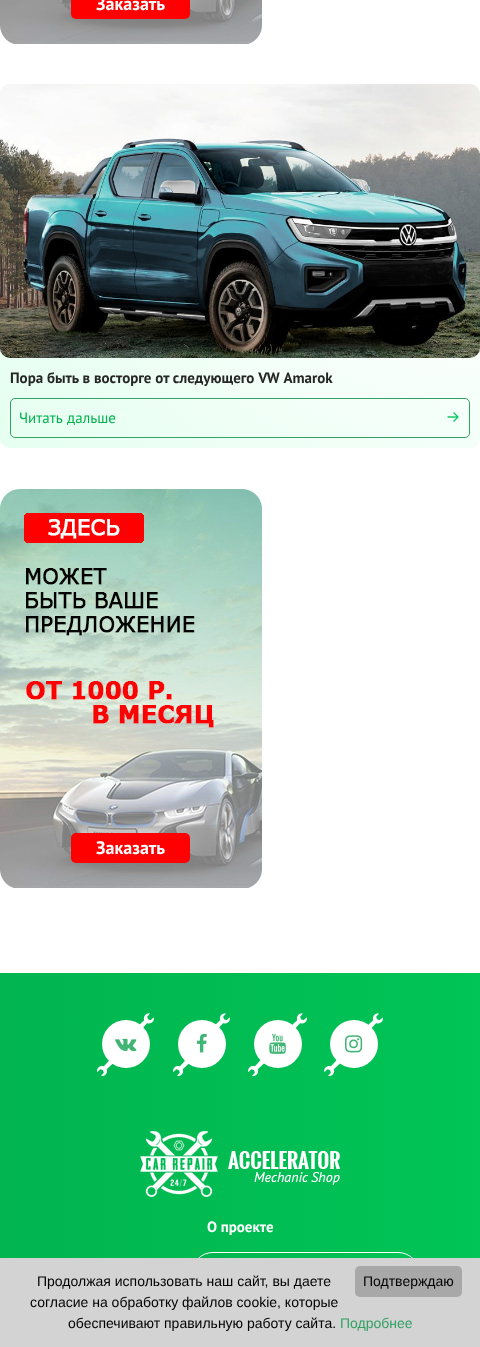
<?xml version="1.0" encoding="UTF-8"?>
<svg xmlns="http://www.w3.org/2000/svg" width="480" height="1347">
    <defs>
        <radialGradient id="g1" gradientUnits="userSpaceOnUse" cx="0" cy="0" r="1" gradientTransform="matrix(817 0 0 485 480 288)"><stop offset="0" stop-color="#FFFFFF"/><stop offset="1" stop-color="#D8FFE9"/></radialGradient>
        <radialGradient id="g2" gradientUnits="userSpaceOnUse" cx="0" cy="0" r="1" gradientTransform="matrix(1030 0 0 171993 -94 844)"><stop offset="0" stop-color="#01B14E"/><stop offset="1" stop-color="#00D45D"/></radialGradient>
        <clipPath id="clip1"><rect x="191" y="1252" width="229" height="50" rx="22"/></clipPath>
        <radialGradient id="g3" gradientUnits="userSpaceOnUse" cx="0" cy="0" r="1" gradientTransform="matrix(487 0 0 23321 148 1235)"><stop offset="0" stop-color="#01B14E"/><stop offset="1" stop-color="#00D45D"/></radialGradient>
    </defs>
    <rect width="100%" height="100%" fill="#FFFFFF"/>
    <image x="0" y="0" width="262" height="44" href="img_01.png"/>
    <rect x="71" y="-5" width="119" height="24" rx="5" fill="#FF0000"/>
    <text x="96" y="10" font-family="PT Sans" font-size="18" font-weight="700" fill="#FFFFFF">Заказать</text>
    <rect x="0" y="84" width="480" height="364" rx="10" fill="url(#g1)"/>
    <image x="0" y="84" width="480" height="274" href="img_02.png"/>
    <text x="10" y="383" font-family="PT Sans" font-size="15" font-weight="700" fill="#262626">Пора быть в восторге от следующего VW Amarok</text>
    <rect x="10.5" y="398.5" width="459" height="39" rx="4.5" fill="none" stroke="#33A163"/>
    <text x="19" y="423" word-spacing="1" font-family="PT Sans" font-size="15" fill="#01B14E">Читать дальше</text>
    <image x="447" y="412" width="12" height="10" href="img_03.png"/>
    <image x="0" y="488" width="262" height="400" href="img_04.png"/>
    <rect x="71" y="833" width="119" height="30" rx="5" fill="#FF0000"/>
    <text x="96" y="854" font-family="PT Sans" font-size="18" font-weight="700" fill="#FFFFFF">Заказать</text>
    <rect x="0" y="973" width="480" height="285" fill="url(#g2)"/>
    <image x="139" y="1013" width="15" height="15" href="img_05.png"/>
    <image x="97" y="1060" width="16" height="17" href="img_07.png"/>
    <circle cx="126" cy="1044" r="24" fill="#FFFFFF"/>
    <image x="115" y="1038" width="22" height="13" href="img_06.png"/>
    <image x="215" y="1013" width="15" height="15" href="img_08.png"/>
    <image x="173" y="1060" width="16" height="17" href="img_10.png"/>
    <circle cx="202" cy="1044" r="24" fill="#FFFFFF"/>
    <image x="197" y="1033" width="10" height="20" href="img_09.png"/>
    <image x="292" y="1013" width="15" height="16" href="img_11.png"/>
    <image x="248" y="1059" width="17" height="18" href="img_13.png"/>
    <circle cx="278" cy="1044" r="24" fill="#FFFFFF"/>
    <image x="269" y="1033" width="17" height="21" href="img_12.png"/>
    <image x="368" y="1013" width="15" height="16" href="img_14.png"/>
    <image x="324" y="1059" width="17" height="18" href="img_16.png"/>
    <circle cx="354" cy="1044" r="24" fill="#FFFFFF"/>
    <image x="345" y="1035" width="18" height="18" href="img_15.png"/>
    <image x="140" y="1131" width="200" height="66" href="img_17.png"/>
    <text x="207" y="1232" font-family="PT Sans" font-size="15" font-weight="700" fill="#FFFFFF">О проекте</text>
    <g clip-path="url(#clip1)">
        <rect x="198" y="1253" width="215" height="5" fill="url(#g3)"/>
    </g>
    <rect x="191.5" y="1252.5" width="228" height="49" rx="21.5" fill="none" stroke="#FFFFFF"/>
    <rect x="0" y="1258" width="480" height="89" fill="#D3D3D3"/>
    <text x="37" y="1286" font-family="Liberation Sans" font-size="14" fill="#000000">Продолжая использовать наш сайт, вы даете</text>
    <text x="30" y="1307" font-family="Liberation Sans" font-size="14" fill="#000000">согласие на обработку файлов cookie, которые</text>
    <text x="68" y="1328" font-family="Liberation Sans" font-size="14" fill="#000000">обеспечивают правильную работу сайта.</text>
    <text x="340" y="1328" font-family="Liberation Sans" font-size="14" fill="#33A163">Подробнее</text>
    <rect x="355" y="1266" width="107" height="31" rx="5" fill="#A8A8A8"/>
    <text x="363" y="1286" font-family="Liberation Sans" font-size="14" fill="#000000">Подтверждаю</text>
</svg>
